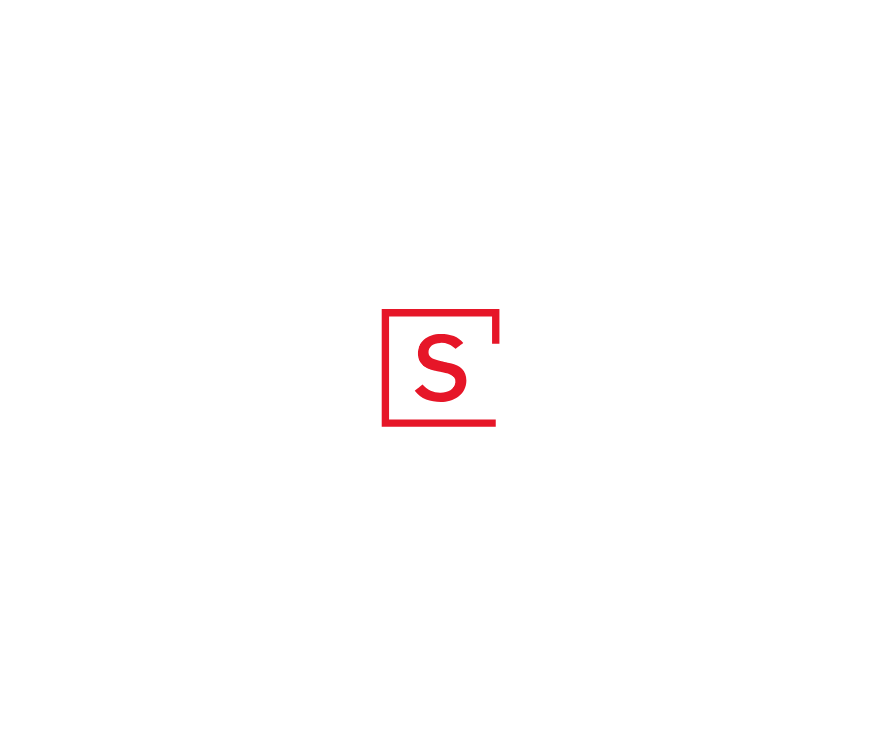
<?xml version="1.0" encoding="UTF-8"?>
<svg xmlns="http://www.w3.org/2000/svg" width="882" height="736">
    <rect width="100%" height="100%" fill="#FFFFFF"/>
    <image x="381" y="309" width="119" height="118" href="img_01.png"/>
</svg>
